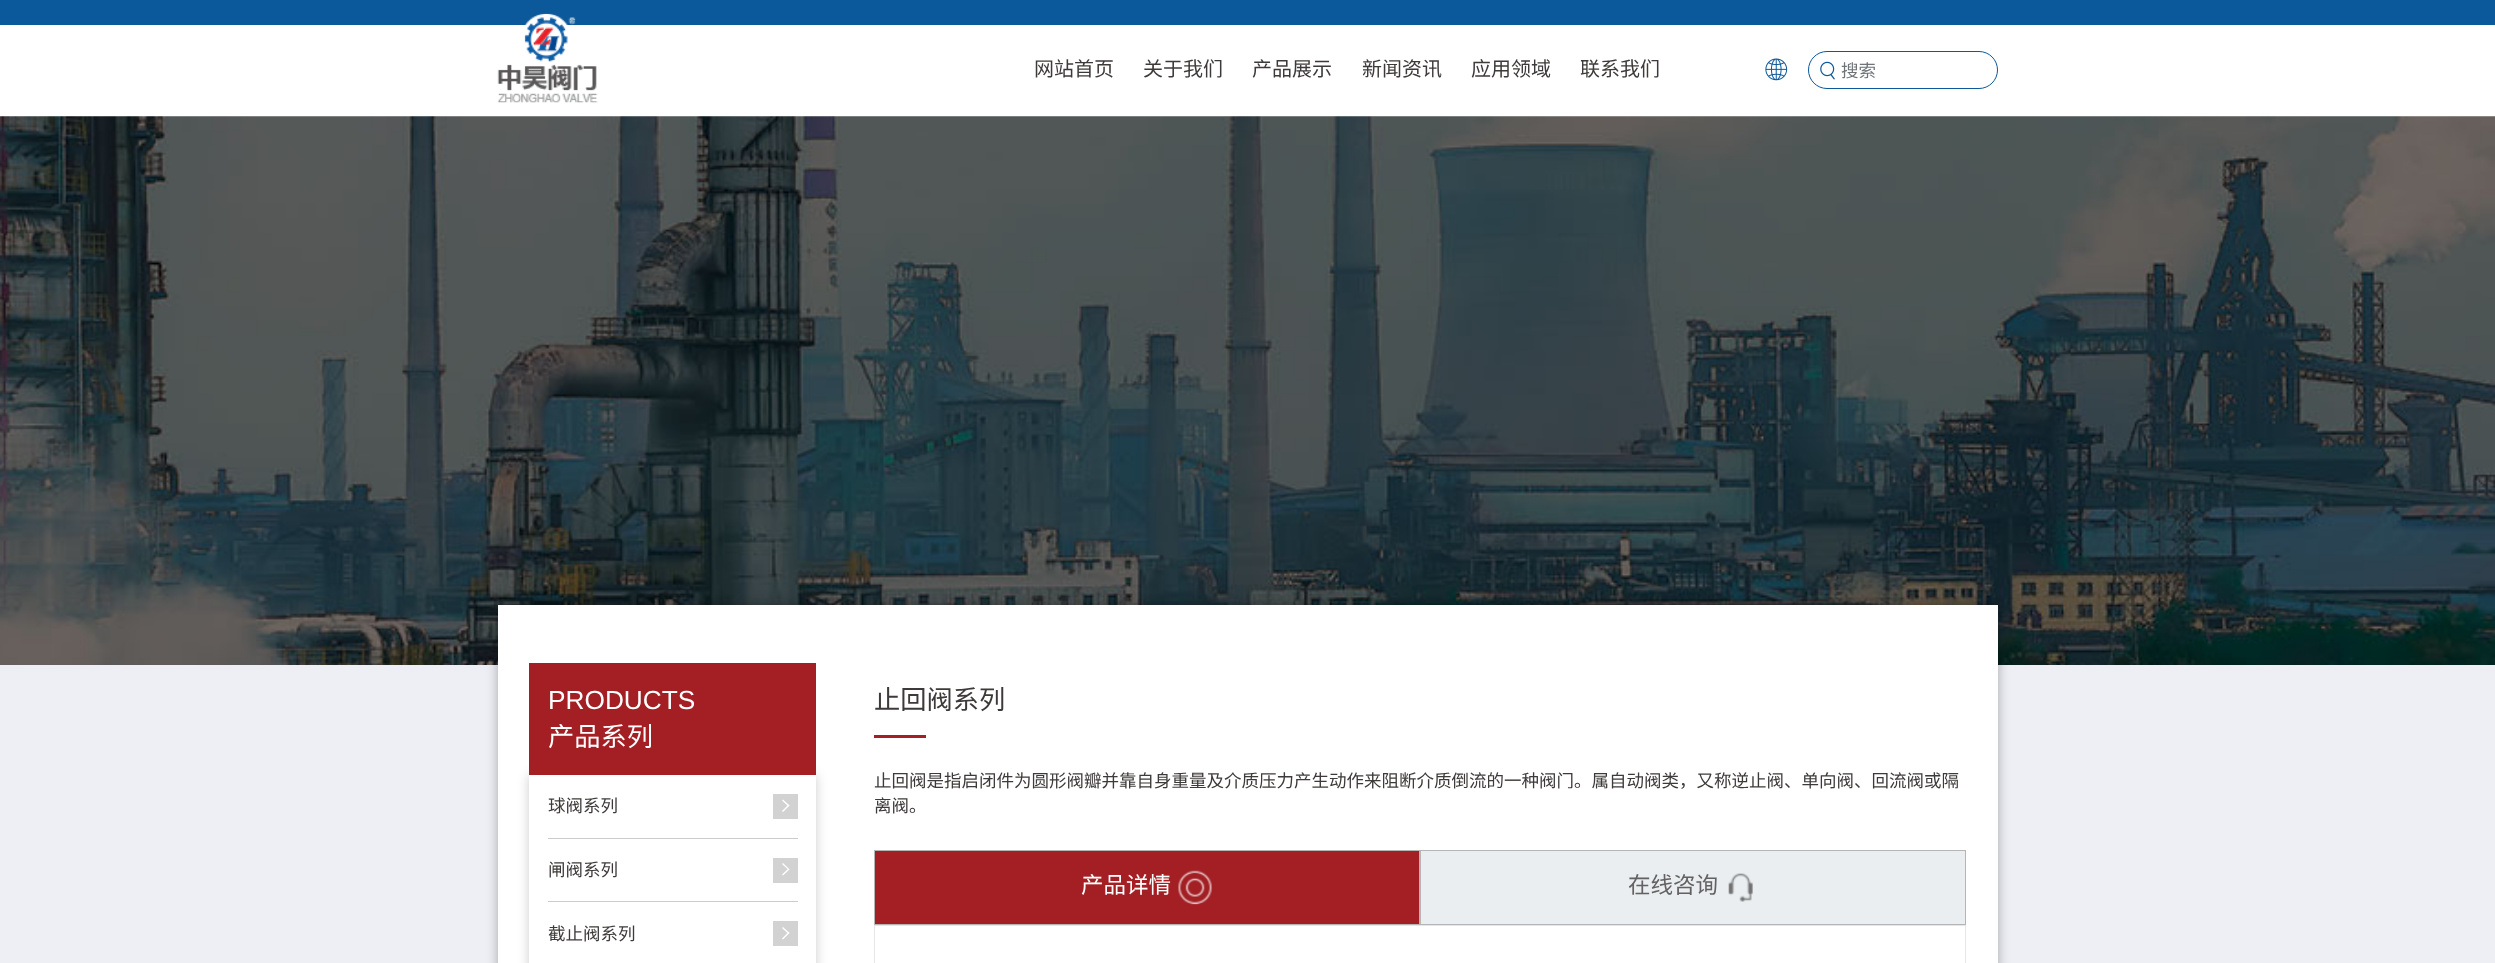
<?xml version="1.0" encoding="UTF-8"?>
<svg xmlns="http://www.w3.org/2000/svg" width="2495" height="963">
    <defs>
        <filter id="blur1" x="-50%" y="-200%" width="200%" height="500%"><feGaussianBlur stdDeviation="6"/></filter>
        <clipPath id="clip1"><path d="M 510 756 H 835 V 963 H 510 Z M 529 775 H 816 V 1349 H 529 Z" clip-rule="evenodd"/></clipPath>
    </defs>
    <rect width="100%" height="100%" fill="#FFFFFF"/>
    <rect x="0" y="0" width="2495" height="25" fill="#0B589A"/>
    <image x="497" y="13" width="101" height="90" href="img_01.png"/>
    <text x="1034" y="76" font-family="Noto Sans CJK SC" font-size="20" fill="#3E3A39">网站首页</text>
    <text x="1143" y="76" font-family="Noto Sans CJK SC" font-size="20" fill="#3E3A39">关于我们</text>
    <text x="1252" y="76" font-family="Noto Sans CJK SC" font-size="20" fill="#3E3A39">产品展示</text>
    <text x="1362" y="76" font-family="Noto Sans CJK SC" font-size="20" fill="#3E3A39">新闻资讯</text>
    <text x="1471" y="76" font-family="Noto Sans CJK SC" font-size="20" fill="#3E3A39">应用领域</text>
    <text x="1580" y="76" font-family="Noto Sans CJK SC" font-size="20" fill="#3E3A39">联系我们</text>
    <image x="1765" y="58" width="23" height="23" href="img_02.png"/>
    <rect x="1808.5" y="51.5" width="189" height="37" rx="18.5" fill="none" stroke="#0B589A"/>
    <image x="1820" y="61" width="15" height="19" href="img_03.png"/>
    <text x="1841" y="77" font-family="Noto Sans CJK SC" font-size="17.5" fill="#6F7478">搜索</text>
    <image x="0" y="116" width="2495" height="549" href="img_04.png"/>
    <rect x="0" y="665" width="2495" height="298" fill="#EDEFF4"/>
    <rect x="498" y="605" width="1500" height="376" fill="#000000" fill-opacity="0.3" filter="url(#blur1)"/>
    <rect x="498" y="605" width="1500" height="358" fill="#FFFFFF"/>
    <g clip-path="url(#clip1)">
        <rect x="529" y="775" width="287" height="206" fill="#000000" fill-opacity="0.2" filter="url(#blur1)"/>
    </g>
    <rect x="529" y="663" width="287" height="112" fill="#A31F24"/>
    <text x="548" y="709" font-family="Liberation Sans" font-size="26.25" fill="#FFFFFF">PRODUCTS</text>
    <text x="548" y="746" font-family="Noto Sans CJK SC" font-size="26.25" fill="#FFFFFF">产品系列</text>
    <rect x="548" y="838" width="250" height="1" fill="#CCCCCC"/>
    <text x="548" y="812" font-family="Noto Sans CJK SC" font-size="17.5" fill="#3E3A39">球阀系列</text>
    <rect x="773" y="794" width="25" height="25" fill="#D2D2D2"/>
    <path d="M 782 800.5 L 783 799.5 L 789.5 805.5 L 788.5 806.5 Z" fill="#FFFFFF"/>
    <path d="M 782 811 L 788.5 804.5 L 789.5 805.5 L 783 812 Z" fill="#FFFFFF"/>
    <rect x="548" y="901" width="250" height="1" fill="#CCCCCC"/>
    <text x="548" y="876" font-family="Noto Sans CJK SC" font-size="17.5" fill="#3E3A39">闸阀系列</text>
    <rect x="773" y="858" width="25" height="25" fill="#D2D2D2"/>
    <path d="M 782 864 L 783 863 L 789.5 869.5 L 788.5 870 Z" fill="#FFFFFF"/>
    <path d="M 782 874.5 L 788.5 868.5 L 789.5 869.5 L 783 875.5 Z" fill="#FFFFFF"/>
    <text x="548" y="940" font-family="Noto Sans CJK SC" font-size="17.5" fill="#3E3A39">截止阀系列</text>
    <rect x="773" y="921" width="25" height="25" fill="#D2D2D2"/>
    <path d="M 782 928 L 783 927 L 789.5 933 L 788.5 934 Z" fill="#FFFFFF"/>
    <path d="M 782 938.5 L 788.5 932 L 789.5 933 L 783 939.5 Z" fill="#FFFFFF"/>
    <text x="874" y="709" font-family="Noto Sans CJK SC" font-size="26.25" fill="#3E3A39">止回阀系列</text>
    <rect x="874" y="735" width="52" height="3" fill="#A31F24"/>
    <text font-family="Noto Sans CJK SC" font-size="17.5" fill="#3E3A39">
        <tspan x="874" y="787">止回阀是指启闭件为圆形阀瓣并靠自身重量及介质压力产生动作来阻断介质倒流的一种阀门。属自动阀类，又称逆止阀、单向阀、回流阀或隔</tspan>
        <tspan x="874" y="812">离阀。</tspan>
    </text>
    <rect x="874.5" y="850.5" width="545" height="74" fill="#A31F24" stroke="#B5B5B5"/>
    <text x="1081" y="893" font-family="Noto Sans CJK SC" font-size="22.5" fill="#FFFFFF">产品详情</text>
    <image x="1178" y="870" width="34" height="35" href="img_05.png"/>
    <rect x="1420.5" y="850.5" width="545" height="74" fill="#EAEEF1" stroke="#B5B5B5"/>
    <text x="1628" y="893" font-family="Noto Sans CJK SC" font-size="22.5" fill="#636162">在线咨询</text>
    <image x="1728" y="873" width="25" height="29" href="img_06.png"/>
    <rect x="874.5" y="925.5" width="1091" height="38" fill="none" stroke="#E6E6E6"/>
</svg>
